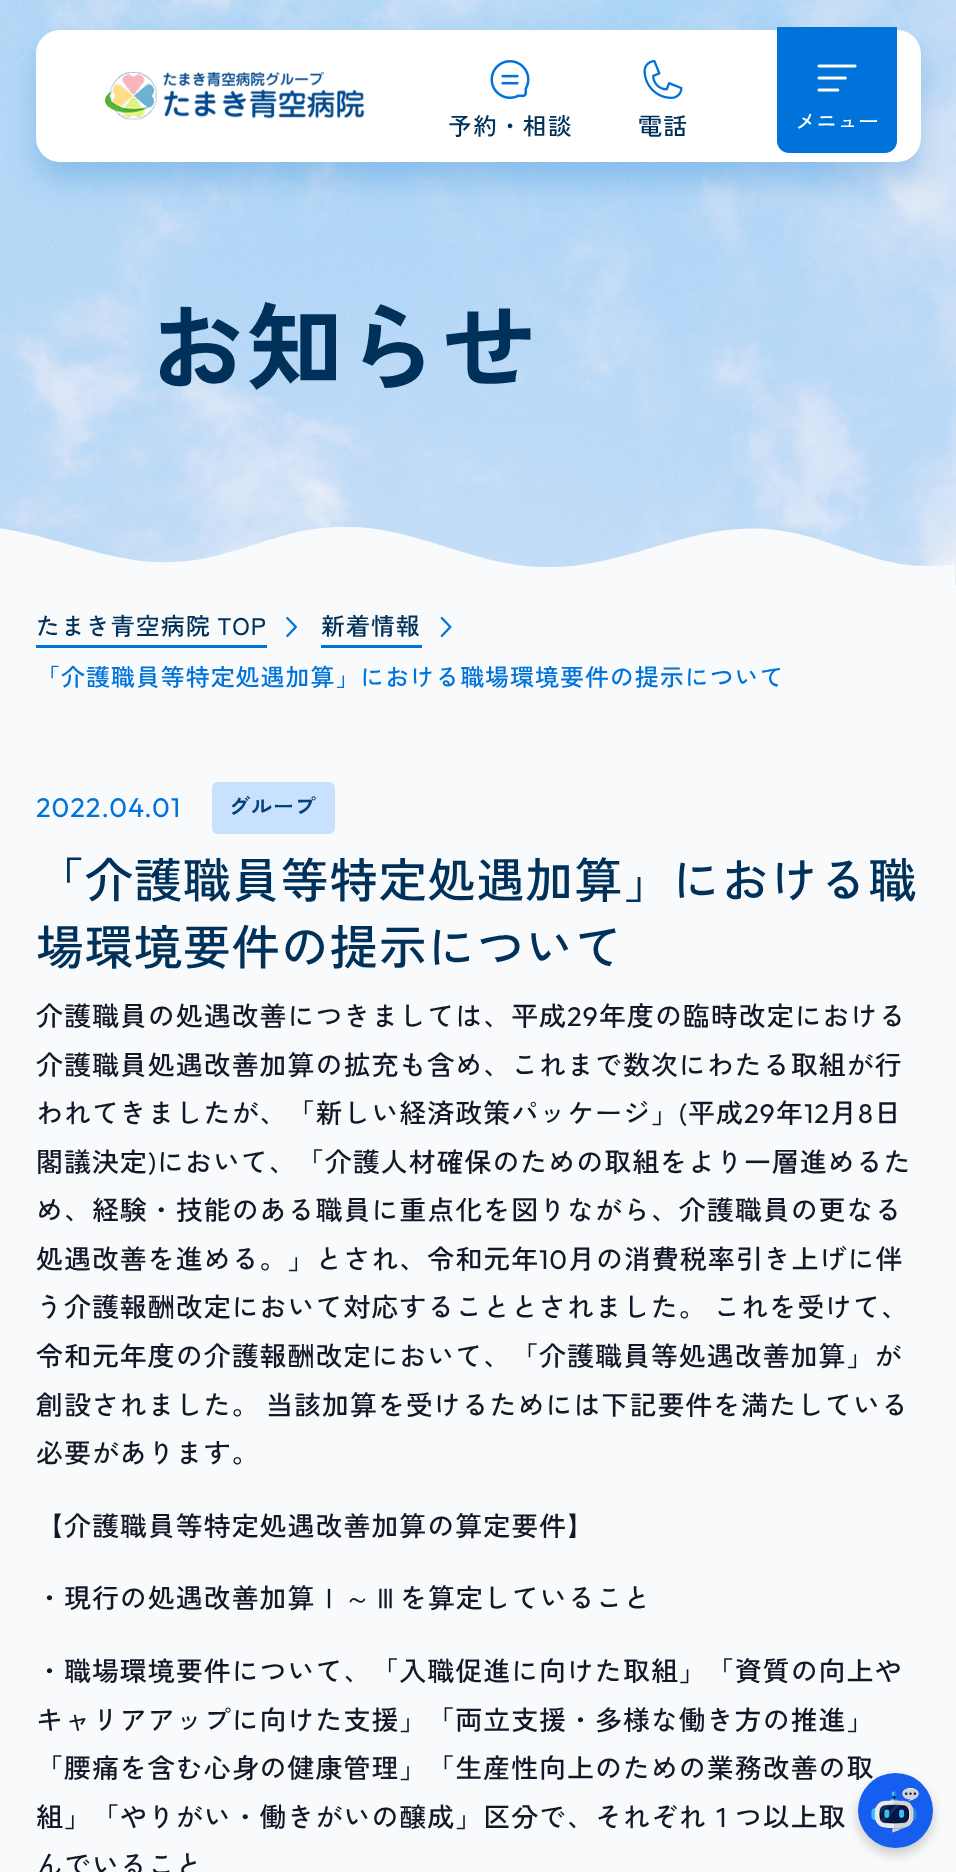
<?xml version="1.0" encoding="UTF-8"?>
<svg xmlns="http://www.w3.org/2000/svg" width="956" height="1872">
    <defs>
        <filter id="blur1" x="-50%" y="-200%" width="200%" height="500%"><feGaussianBlur stdDeviation="15"/></filter>
        <clipPath id="clip1"><rect x="0" y="527" width="956" height="58"/></clipPath>
        <filter id="blur2" x="-50%" y="-200%" width="200%" height="500%"><feGaussianBlur stdDeviation="6"/></filter>
    </defs>
    <rect width="100%" height="100%" fill="#F9FAFB"/>
    <image x="0" y="0" width="956" height="585" href="img_05.png"/>
    <rect x="36" y="48" width="885" height="132" rx="24" fill="#0068C4" fill-opacity="0.24" filter="url(#blur1)"/>
    <rect x="36" y="30" width="885" height="132" rx="24" fill="#FFFFFF"/>
    <image x="105" y="72" width="260" height="48" href="img_01.png"/>
    <image x="490" y="60" width="40" height="39" href="img_02.png"/>
    <text x="448" y="135" font-family="Zen Kaku Gothic New" font-size="24" font-weight="500" letter-spacing="0.95" fill="#00315B">予約・相談</text>
    <image x="643" y="60" width="40" height="39" href="img_03.png"/>
    <text x="638" y="135" font-family="Zen Kaku Gothic New" font-size="24" font-weight="500" letter-spacing="0.95" fill="#00315B">電話</text>
    <path d="M 777 27 H 897 V 141 C 897 147.5 891.5 153 885 153 H 789 C 782.5 153 777 147.5 777 141 Z" fill="#0073DA"/>
    <image x="817" y="64" width="40" height="28" href="img_04.png"/>
    <text x="795" y="129" font-family="Zen Kaku Gothic New" font-size="21" font-weight="500" fill="#FFFFFF">メニュー</text>
    <g clip-path="url(#clip1)">
        <path d="M 955 586 V 564 C 948 565 940 566 932 566 C 870 568 828 533 766 529 C 687 523 627 568 547 567 C 470 567 413 523 336 527 C 275 529 234 560 173 562 C 139 564 107 555 78 547 C 53 540 27 532 -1 528 V 586 Z" fill="#F9FAFB"/>
    </g>
    <text x="150" y="383" font-family="Zen Kaku Gothic New" font-size="96" font-weight="700" letter-spacing="0.95" fill="#00315B">お知らせ</text>
    <rect x="36" y="645" width="231" height="3" fill="#0073DA"/>
    <text x="36" y="635" word-spacing="-1" font-family="Zen Kaku Gothic New" font-size="24" font-weight="500" letter-spacing="0.95" fill="#00315B">たまき青空病院 TOP</text>
    <image x="286" y="616" width="11" height="22" href="img_06.png"/>
    <rect x="321" y="645" width="101" height="3" fill="#0073DA"/>
    <text x="321" y="635" font-family="Zen Kaku Gothic New" font-size="24" font-weight="500" letter-spacing="0.95" fill="#00315B">新着情報</text>
    <image x="440" y="616" width="12" height="22" href="img_07.png"/>
    <text x="36" y="686" font-family="Zen Kaku Gothic New" font-size="24" font-weight="500" letter-spacing="0.95" fill="#0073DA">「介護職員等特定処遇加算」における職場環境要件の提示について</text>
    <text x="36" y="817" font-family="Outfit" font-size="27" letter-spacing="0.95" fill="#0073DA">2022.04.01</text>
    <rect x="212" y="782" width="123" height="52" rx="6" fill="#C8E1FF"/>
    <text x="229" y="814" font-family="Zen Kaku Gothic New" font-size="21" font-weight="700" letter-spacing="0.95" fill="#034178">グループ</text>
    <text font-family="Zen Kaku Gothic New" font-size="48" font-weight="500" letter-spacing="0.95" fill="#00315B">
        <tspan x="36" y="898">「介護職員等特定処遇加算」における職</tspan>
        <tspan x="36" y="965">場環境要件の提示について</tspan>
    </text>
    <text x="36" y="1026" font-family="Zen Kaku Gothic New" font-size="27" font-weight="500" letter-spacing="0.95" fill="#111827">介護職員の処遇改善につきましては、平成</text>
    <text x="567" y="1026" font-family="Outfit" font-size="27" letter-spacing="0.95" fill="#111827">29</text>
    <text x="599" y="1026" font-family="Zen Kaku Gothic New" font-size="27" font-weight="500" letter-spacing="0.95" fill="#111827">年度の臨時改定における</text>
    <text font-family="Zen Kaku Gothic New" font-size="27" font-weight="500" letter-spacing="0.95" fill="#111827">
        <tspan x="36" y="1075">介護職員処遇改善加算の拡充も含め、これまで数次にわたる取組が行</tspan>
        <tspan x="36" y="1123">われてきましたが、「新しい経済政策パッケージ」</tspan>
    </text>
    <text x="679" y="1123" font-family="Outfit" font-size="27" letter-spacing="0.95" fill="#111827">(</text>
    <text x="688" y="1123" font-family="Zen Kaku Gothic New" font-size="27" font-weight="500" letter-spacing="0.95" fill="#111827">平成</text>
    <text x="744" y="1123" font-family="Outfit" font-size="27" letter-spacing="0.95" fill="#111827">29</text>
    <text x="776" y="1123" font-family="Zen Kaku Gothic New" font-size="27" font-weight="500" letter-spacing="0.95" fill="#111827">年</text>
    <text x="804" y="1123" font-family="Outfit" font-size="27" letter-spacing="0.95" fill="#111827">12</text>
    <text x="830" y="1123" font-family="Zen Kaku Gothic New" font-size="27" font-weight="500" letter-spacing="0.95" fill="#111827">月</text>
    <text x="858" y="1123" font-family="Outfit" font-size="27" letter-spacing="0.95" fill="#111827">8</text>
    <text x="874" y="1123" font-family="Zen Kaku Gothic New" font-size="27" font-weight="500" letter-spacing="0.95" fill="#111827">日</text>
    <text x="36" y="1172" font-family="Zen Kaku Gothic New" font-size="27" font-weight="500" letter-spacing="0.95" fill="#111827">閣議決定</text>
    <text x="148" y="1172" font-family="Outfit" font-size="27" letter-spacing="0.95" fill="#111827">)</text>
    <text x="157" y="1172" font-family="Zen Kaku Gothic New" font-size="27" font-weight="500" letter-spacing="0.95" fill="#111827">において、「介護人材確保のための取組をより一層進めるた</text>
    <text font-family="Zen Kaku Gothic New" font-size="27" font-weight="500" letter-spacing="0.95" fill="#111827">
        <tspan x="36" y="1220">め、経験・技能のある職員に重点化を図りながら、介護職員の更なる</tspan>
        <tspan x="36" y="1269">処遇改善を進める。」とされ、令和元年</tspan>
    </text>
    <text x="539" y="1269" font-family="Outfit" font-size="27" letter-spacing="0.95" fill="#111827">10</text>
    <text x="568" y="1269" font-family="Zen Kaku Gothic New" font-size="27" font-weight="500" letter-spacing="0.95" fill="#111827">月の消費税率引き上げに伴</text>
    <text font-family="Zen Kaku Gothic New" font-size="27" font-weight="500" letter-spacing="0.95" fill="#111827">
        <tspan x="36" y="1317" word-spacing="-2">う介護報酬改定において対応することとされました。 これを受けて、</tspan>
        <tspan x="36" y="1366">令和元年度の介護報酬改定において、「介護職員等処遇改善加算」が</tspan>
        <tspan x="36" y="1415" word-spacing="-2">創設されました。 当該加算を受けるためには下記要件を満たしている</tspan>
        <tspan x="36" y="1463">必要があります。</tspan>
    </text>
    <text x="36" y="1536" font-family="Zen Kaku Gothic New" font-size="27" font-weight="500" letter-spacing="0.95" fill="#111827">【介護職員等特定処遇改善加算の算定要件】</text>
    <text x="36" y="1608" font-family="Zen Kaku Gothic New" font-size="27" font-weight="500" letter-spacing="0.95" fill="#111827">・現行の処遇改善加算Ⅰ</text>
    <text x="344" y="1608" font-family="WenQuanYi Zen Hei" font-size="27" font-weight="500" letter-spacing="0.95" fill="#111827">～</text>
    <text x="372" y="1608" font-family="Zen Kaku Gothic New" font-size="27" font-weight="500" letter-spacing="0.95" fill="#111827">Ⅲを算定していること</text>
    <text font-family="Zen Kaku Gothic New" font-size="27" font-weight="500" letter-spacing="0.95" fill="#111827">
        <tspan x="36" y="1681">・職場環境要件について、「入職促進に向けた取組」「資質の向上や</tspan>
        <tspan x="36" y="1730">キャリアアップに向けた支援」「両立支援・多様な働き方の推進」</tspan>
        <tspan x="36" y="1778">「腰痛を含む心身の健康管理」「生産性向上のための業務改善の取</tspan>
        <tspan x="36" y="1827">組」「やりがい・働きがいの醸成」区分で、それぞれ１つ以上取</tspan>
        <tspan x="36" y="1875">んでいること</tspan>
    </text>
    <rect x="858" y="1779" width="75" height="75" rx="37.5" fill="#000000" fill-opacity="0.2" filter="url(#blur2)"/>
    <circle cx="895.5" cy="1810.5" r="37.5" fill="#165EEF"/>
    <image x="871" y="1787" width="48" height="46" href="img_08.png"/>
</svg>
